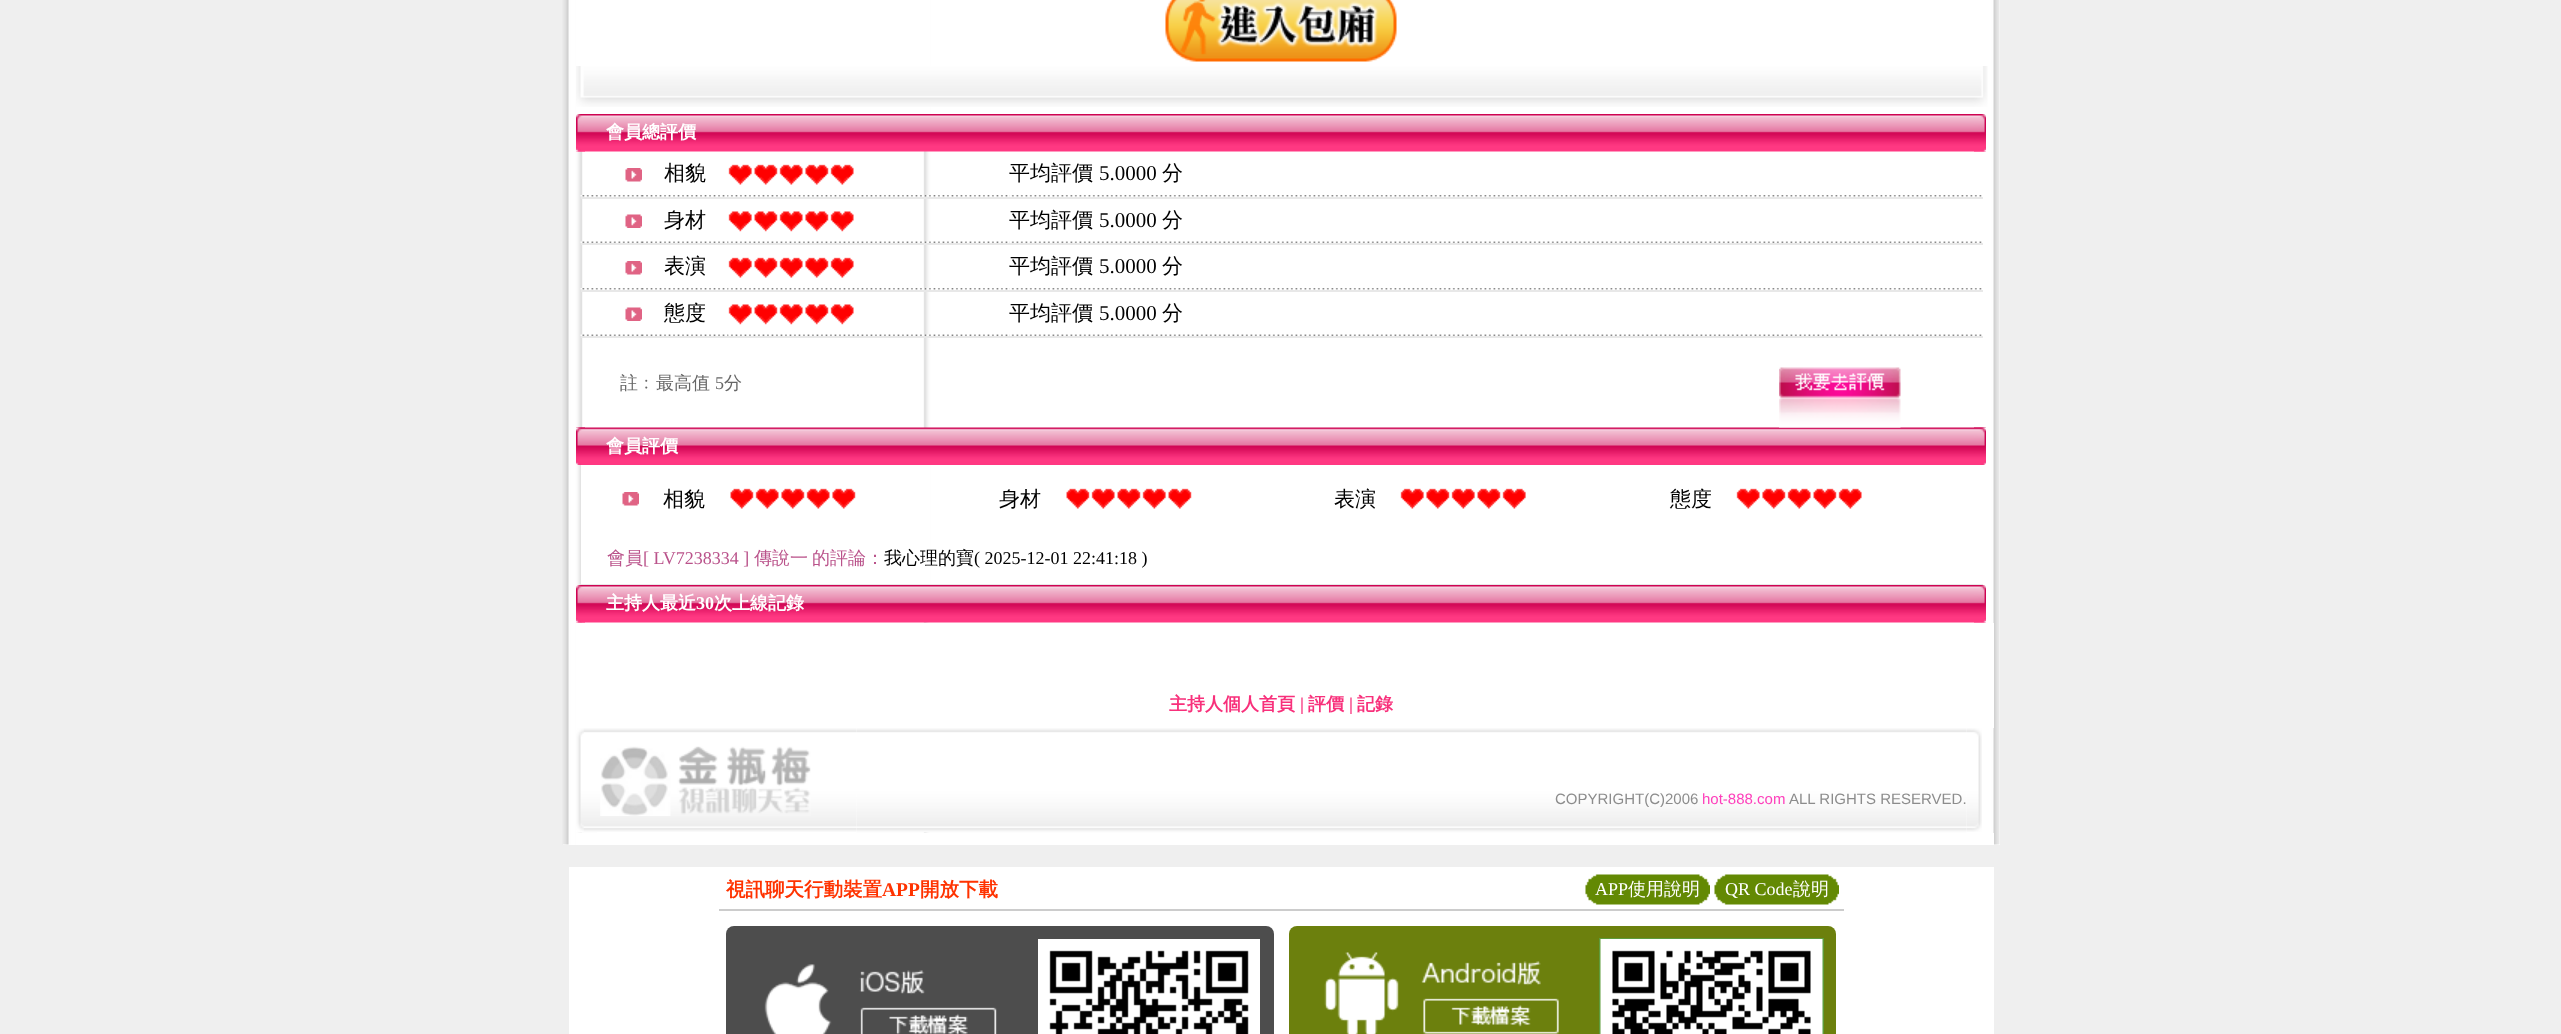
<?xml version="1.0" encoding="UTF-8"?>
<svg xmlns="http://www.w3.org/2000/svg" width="2561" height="1034">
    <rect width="100%" height="100%" fill="#EFEFEF"/>
    <rect x="563" y="0" width="1437" height="845" fill="#FFFFFF"/>
    <image x="562" y="0" width="1438" height="845" href="img_01.png"/>
    <rect x="576" y="0" width="354" height="114" fill="#FFFFFF"/>
    <image x="1165" y="0" width="232" height="62" href="img_02.png"/>
    <image x="576" y="66" width="1412" height="41" href="img_03.png"/>
    <image x="576" y="114" width="30" height="38" href="img_04.png"/>
    <image x="576" y="114" width="9" height="38" href="img_05.png"/>
    <image x="606" y="114" width="909" height="38" href="img_06.png"/>
    <text x="606" y="138" font-family="WenQuanYi Zen Hei" font-size="18" font-weight="700" fill="#FFFFFF">會員總評價</text>
    <image x="1515" y="114" width="471" height="38" href="img_07.png"/>
    <image x="1974" y="114" width="12" height="38" href="img_08.png"/>
    <image x="642" y="195" width="86" height="2" href="img_09.png"/>
    <text x="664" y="180" font-family="WenQuanYi Zen Hei" font-size="21" font-weight="500" fill="#000000">相貌</text>
    <image x="727" y="195" width="281" height="2" href="img_10.png"/>
    <image x="728" y="164" width="24" height="21" href="img_11.png"/>
    <image x="754" y="164" width="24" height="21" href="img_12.png"/>
    <image x="779" y="164" width="24" height="21" href="img_13.png"/>
    <image x="805" y="164" width="24" height="21" href="img_14.png"/>
    <image x="830" y="164" width="24" height="21" href="img_13.png"/>
    <image x="1009" y="195" width="973" height="2" href="img_15.png"/>
    <text x="1009" y="180" font-family="WenQuanYi Zen Hei" font-size="21" font-weight="500" fill="#000000">平均評價</text>
    <text x="1099" y="180" font-family="Liberation Serif" font-size="21" fill="#000000">5.0000</text>
    <text x="1162" y="180" font-family="WenQuanYi Zen Hei" font-size="21" font-weight="500" fill="#000000">分</text>
    <image x="580" y="195" width="62" height="2" href="img_16.png"/>
    <rect x="581" y="197" width="1402" height="2" fill="#E8E8E8"/>
    <image x="625" y="168" width="17" height="14" href="img_17.png"/>
    <image x="642" y="241" width="86" height="2" href="img_18.png"/>
    <text x="664" y="227" font-family="WenQuanYi Zen Hei" font-size="21" font-weight="500" fill="#000000">身材</text>
    <image x="727" y="241" width="281" height="2" href="img_19.png"/>
    <image x="728" y="211" width="24" height="21" href="img_20.png"/>
    <image x="754" y="211" width="24" height="21" href="img_21.png"/>
    <image x="779" y="211" width="24" height="21" href="img_22.png"/>
    <image x="805" y="211" width="24" height="21" href="img_23.png"/>
    <image x="830" y="211" width="24" height="21" href="img_22.png"/>
    <image x="1009" y="241" width="973" height="2" href="img_24.png"/>
    <text x="1009" y="227" font-family="WenQuanYi Zen Hei" font-size="21" font-weight="500" fill="#000000">平均評價</text>
    <text x="1099" y="227" font-family="Liberation Serif" font-size="21" fill="#000000">5.0000</text>
    <text x="1162" y="227" font-family="WenQuanYi Zen Hei" font-size="21" font-weight="500" fill="#000000">分</text>
    <image x="580" y="241" width="62" height="2" href="img_25.png"/>
    <rect x="581" y="243" width="1402" height="2" fill="#E8E8E8"/>
    <image x="625" y="214" width="17" height="14" href="img_26.png"/>
    <image x="642" y="288" width="86" height="2" href="img_09.png"/>
    <text x="664" y="273" font-family="WenQuanYi Zen Hei" font-size="21" font-weight="500" fill="#000000">表演</text>
    <image x="727" y="288" width="281" height="2" href="img_10.png"/>
    <image x="728" y="257" width="24" height="21" href="img_11.png"/>
    <image x="754" y="257" width="24" height="21" href="img_12.png"/>
    <image x="779" y="257" width="24" height="21" href="img_13.png"/>
    <image x="805" y="257" width="24" height="21" href="img_14.png"/>
    <image x="830" y="257" width="24" height="21" href="img_13.png"/>
    <image x="1009" y="288" width="973" height="2" href="img_15.png"/>
    <text x="1009" y="273" font-family="WenQuanYi Zen Hei" font-size="21" font-weight="500" fill="#000000">平均評價</text>
    <text x="1099" y="273" font-family="Liberation Serif" font-size="21" fill="#000000">5.0000</text>
    <text x="1162" y="273" font-family="WenQuanYi Zen Hei" font-size="21" font-weight="500" fill="#000000">分</text>
    <image x="580" y="288" width="62" height="2" href="img_16.png"/>
    <rect x="581" y="290" width="1402" height="2" fill="#E8E8E8"/>
    <image x="625" y="261" width="17" height="14" href="img_17.png"/>
    <image x="642" y="334" width="86" height="2" href="img_18.png"/>
    <text x="664" y="320" font-family="WenQuanYi Zen Hei" font-size="21" font-weight="500" fill="#000000">態度</text>
    <image x="727" y="334" width="281" height="2" href="img_19.png"/>
    <image x="728" y="304" width="24" height="21" href="img_20.png"/>
    <image x="754" y="304" width="24" height="21" href="img_21.png"/>
    <image x="779" y="304" width="24" height="21" href="img_22.png"/>
    <image x="805" y="304" width="24" height="21" href="img_23.png"/>
    <image x="830" y="304" width="24" height="21" href="img_22.png"/>
    <image x="1009" y="334" width="973" height="2" href="img_24.png"/>
    <text x="1009" y="320" font-family="WenQuanYi Zen Hei" font-size="21" font-weight="500" fill="#000000">平均評價</text>
    <text x="1099" y="320" font-family="Liberation Serif" font-size="21" fill="#000000">5.0000</text>
    <text x="1162" y="320" font-family="WenQuanYi Zen Hei" font-size="21" font-weight="500" fill="#000000">分</text>
    <image x="580" y="334" width="62" height="2" href="img_25.png"/>
    <rect x="581" y="336" width="1402" height="2" fill="#E8E8E8"/>
    <image x="625" y="307" width="17" height="14" href="img_26.png"/>
    <text x="620" y="389" font-family="WenQuanYi Zen Hei" font-size="18" font-weight="500" fill="#666666">註﹕最高值</text>
    <text x="715" y="389" font-family="Liberation Serif" font-size="18" fill="#666666">5</text>
    <text x="724" y="389" font-family="WenQuanYi Zen Hei" font-size="18" font-weight="500" fill="#666666">分</text>
    <image x="1515" y="427" width="471" height="38" href="img_31.png"/>
    <image x="1779" y="367" width="122" height="61" href="img_27.png"/>
    <image x="576" y="427" width="30" height="38" href="img_28.png"/>
    <image x="576" y="427" width="9" height="38" href="img_29.png"/>
    <image x="606" y="427" width="909" height="38" href="img_30.png"/>
    <text x="606" y="452" font-family="WenQuanYi Zen Hei" font-size="18" font-weight="700" fill="#FFFFFF">會員評價</text>
    <image x="1974" y="427" width="12" height="38" href="img_32.png"/>
    <rect x="581" y="465" width="349" height="119" fill="#FFFFFF"/>
    <image x="622" y="492" width="17" height="14" href="img_17.png"/>
    <text x="663" y="506" font-family="WenQuanYi Zen Hei" font-size="21" font-weight="500" fill="#000000">相貌</text>
    <image x="730" y="488" width="24" height="21" href="img_33.png"/>
    <image x="755" y="488" width="24" height="21" href="img_34.png"/>
    <image x="781" y="488" width="24" height="21" href="img_14.png"/>
    <image x="806" y="488" width="24" height="21" href="img_13.png"/>
    <image x="832" y="488" width="24" height="21" href="img_14.png"/>
    <text x="999" y="506" font-family="WenQuanYi Zen Hei" font-size="21" font-weight="500" fill="#000000">身材</text>
    <image x="1066" y="488" width="24" height="21" href="img_33.png"/>
    <image x="1091" y="488" width="24" height="21" href="img_13.png"/>
    <image x="1117" y="488" width="24" height="21" href="img_33.png"/>
    <image x="1142" y="488" width="24" height="21" href="img_11.png"/>
    <image x="1168" y="488" width="24" height="21" href="img_33.png"/>
    <text x="1334" y="506" font-family="WenQuanYi Zen Hei" font-size="21" font-weight="500" fill="#000000">表演</text>
    <image x="1400" y="488" width="24" height="21" href="img_11.png"/>
    <image x="1426" y="488" width="24" height="21" href="img_14.png"/>
    <image x="1451" y="488" width="24" height="21" href="img_11.png"/>
    <image x="1477" y="488" width="24" height="21" href="img_33.png"/>
    <image x="1502" y="488" width="24" height="21" href="img_11.png"/>
    <text x="1670" y="506" font-family="WenQuanYi Zen Hei" font-size="21" font-weight="500" fill="#000000">態度</text>
    <image x="1736" y="488" width="24" height="21" href="img_13.png"/>
    <image x="1762" y="488" width="24" height="21" href="img_14.png"/>
    <image x="1787" y="488" width="24" height="21" href="img_34.png"/>
    <image x="1813" y="488" width="24" height="21" href="img_33.png"/>
    <image x="1838" y="488" width="24" height="21" href="img_13.png"/>
    <rect x="581" y="584" width="1402" height="1" fill="#E8E8E8"/>
    <text x="607" y="564" font-family="WenQuanYi Zen Hei" font-size="18" font-weight="500" fill="#BA538B">會員</text>
    <text x="643" y="564" font-family="Liberation Serif" font-size="18" fill="#BA538B">[ LV7238334 ]</text>
    <text x="754" y="564" font-family="WenQuanYi Zen Hei" font-size="18" font-weight="500" fill="#BA538B">傳說一</text>
    <text x="812" y="564" font-family="WenQuanYi Zen Hei" font-size="18" font-weight="500" fill="#BA538B">的評論：</text>
    <text x="884" y="564" font-family="WenQuanYi Zen Hei" font-size="18" font-weight="500" fill="#000000">我心理的寶</text>
    <text x="974" y="564" font-family="Liberation Serif" font-size="18" fill="#000000">( 2025-12-01 22:41:18 )</text>
    <image x="576" y="585" width="30" height="38" href="img_04.png"/>
    <image x="576" y="585" width="9" height="38" href="img_05.png"/>
    <image x="606" y="585" width="909" height="38" href="img_06.png"/>
    <text x="606" y="609" font-family="WenQuanYi Zen Hei" font-size="18" font-weight="700" fill="#FFFFFF">主持人最近</text>
    <text x="696" y="609" font-family="Liberation Serif" font-size="18" font-weight="700" fill="#FFFFFF">30</text>
    <text x="714" y="609" font-family="WenQuanYi Zen Hei" font-size="18" font-weight="700" fill="#FFFFFF">次上線記錄</text>
    <image x="1515" y="585" width="471" height="38" href="img_07.png"/>
    <image x="1974" y="585" width="12" height="38" href="img_08.png"/>
    <rect x="576" y="623" width="1418" height="105" fill="#FFFFFF"/>
    <text x="1169" y="710" font-family="WenQuanYi Zen Hei" font-size="18" font-weight="700" fill="#F8307B">主持人個人首頁</text>
    <text x="1300" y="710" font-family="Liberation Serif" font-size="18" font-weight="700" fill="#F8307B">|</text>
    <text x="1308" y="710" font-family="WenQuanYi Zen Hei" font-size="18" font-weight="700" fill="#F8307B">評價</text>
    <text x="1349" y="710" font-family="Liberation Serif" font-size="18" font-weight="700" fill="#F8307B">|</text>
    <text x="1357" y="710" font-family="WenQuanYi Zen Hei" font-size="18" font-weight="700" fill="#F8307B">記錄</text>
    <image x="576" y="728" width="21" height="105" href="img_35.png"/>
    <image x="576" y="728" width="8" height="105" href="img_36.png"/>
    <image x="597" y="728" width="260" height="104" href="img_37.png"/>
    <image x="600" y="746" width="211" height="70" href="img_38.png"/>
    <image x="856" y="728" width="1111" height="105" href="img_39.png"/>
    <text x="1555" y="804" font-family="Liberation Sans" font-size="15" fill="#8C8C8C">COPYRIGHT(C)2006</text>
    <text x="1702" y="804" font-family="Liberation Sans" font-size="15" fill="#FE3EBB">hot-888.com</text>
    <text x="1789" y="804" font-family="Liberation Sans" font-size="15" fill="#8C8C8C">ALL RIGHTS RESERVED.</text>
    <image x="1966" y="728" width="16" height="104" href="img_40.png"/>
    <rect x="576" y="833" width="1418" height="12" fill="#FFFFFF"/>
    <rect x="569" y="867" width="1425" height="167" fill="#FFFFFF"/>
    <rect x="719" y="909" width="1125" height="2" fill="#CCCCCC"/>
    <text x="726" y="896" font-family="WenQuanYi Zen Hei" font-size="19.5" font-weight="700" fill="#FF3300">視訊聊天行動裝置</text>
    <text x="882" y="896" font-family="Liberation Serif" font-size="19.5" font-weight="700" fill="#FF3300">APP</text>
    <text x="920" y="896" font-family="WenQuanYi Zen Hei" font-size="19.5" font-weight="700" fill="#FF3300">開放下載</text>
    <image x="1585" y="874" width="125" height="31" href="img_41.png"/>
    <text x="1595" y="895" font-family="Liberation Serif" font-size="18" fill="#FFFFFF">APP</text>
    <text x="1628" y="895" font-family="WenQuanYi Zen Hei" font-size="18" font-weight="500" fill="#FFFFFF">使用說明</text>
    <image x="1714" y="874" width="125" height="31" href="img_41.png"/>
    <text x="1725" y="895" font-family="Liberation Serif" font-size="18" fill="#FFFFFF">QR Code</text>
    <text x="1793" y="895" font-family="WenQuanYi Zen Hei" font-size="18" font-weight="500" fill="#FFFFFF">說明</text>
    <rect x="726" y="926" width="548" height="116" rx="8" fill="#4D4D4D"/>
    <image x="764" y="964" width="233" height="70" href="img_42.png"/>
    <image x="1038" y="939" width="222" height="95" href="img_43.png"/>
    <rect x="1289" y="926" width="547" height="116" rx="8" fill="#6C800D"/>
    <image x="1324" y="952" width="235" height="82" href="img_44.png"/>
    <rect x="1600" y="939" width="223" height="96" fill="none" stroke="#5D9C3B" stroke-width="2"/>
    <image x="1600" y="939" width="223" height="95" href="img_45.png"/>
</svg>
